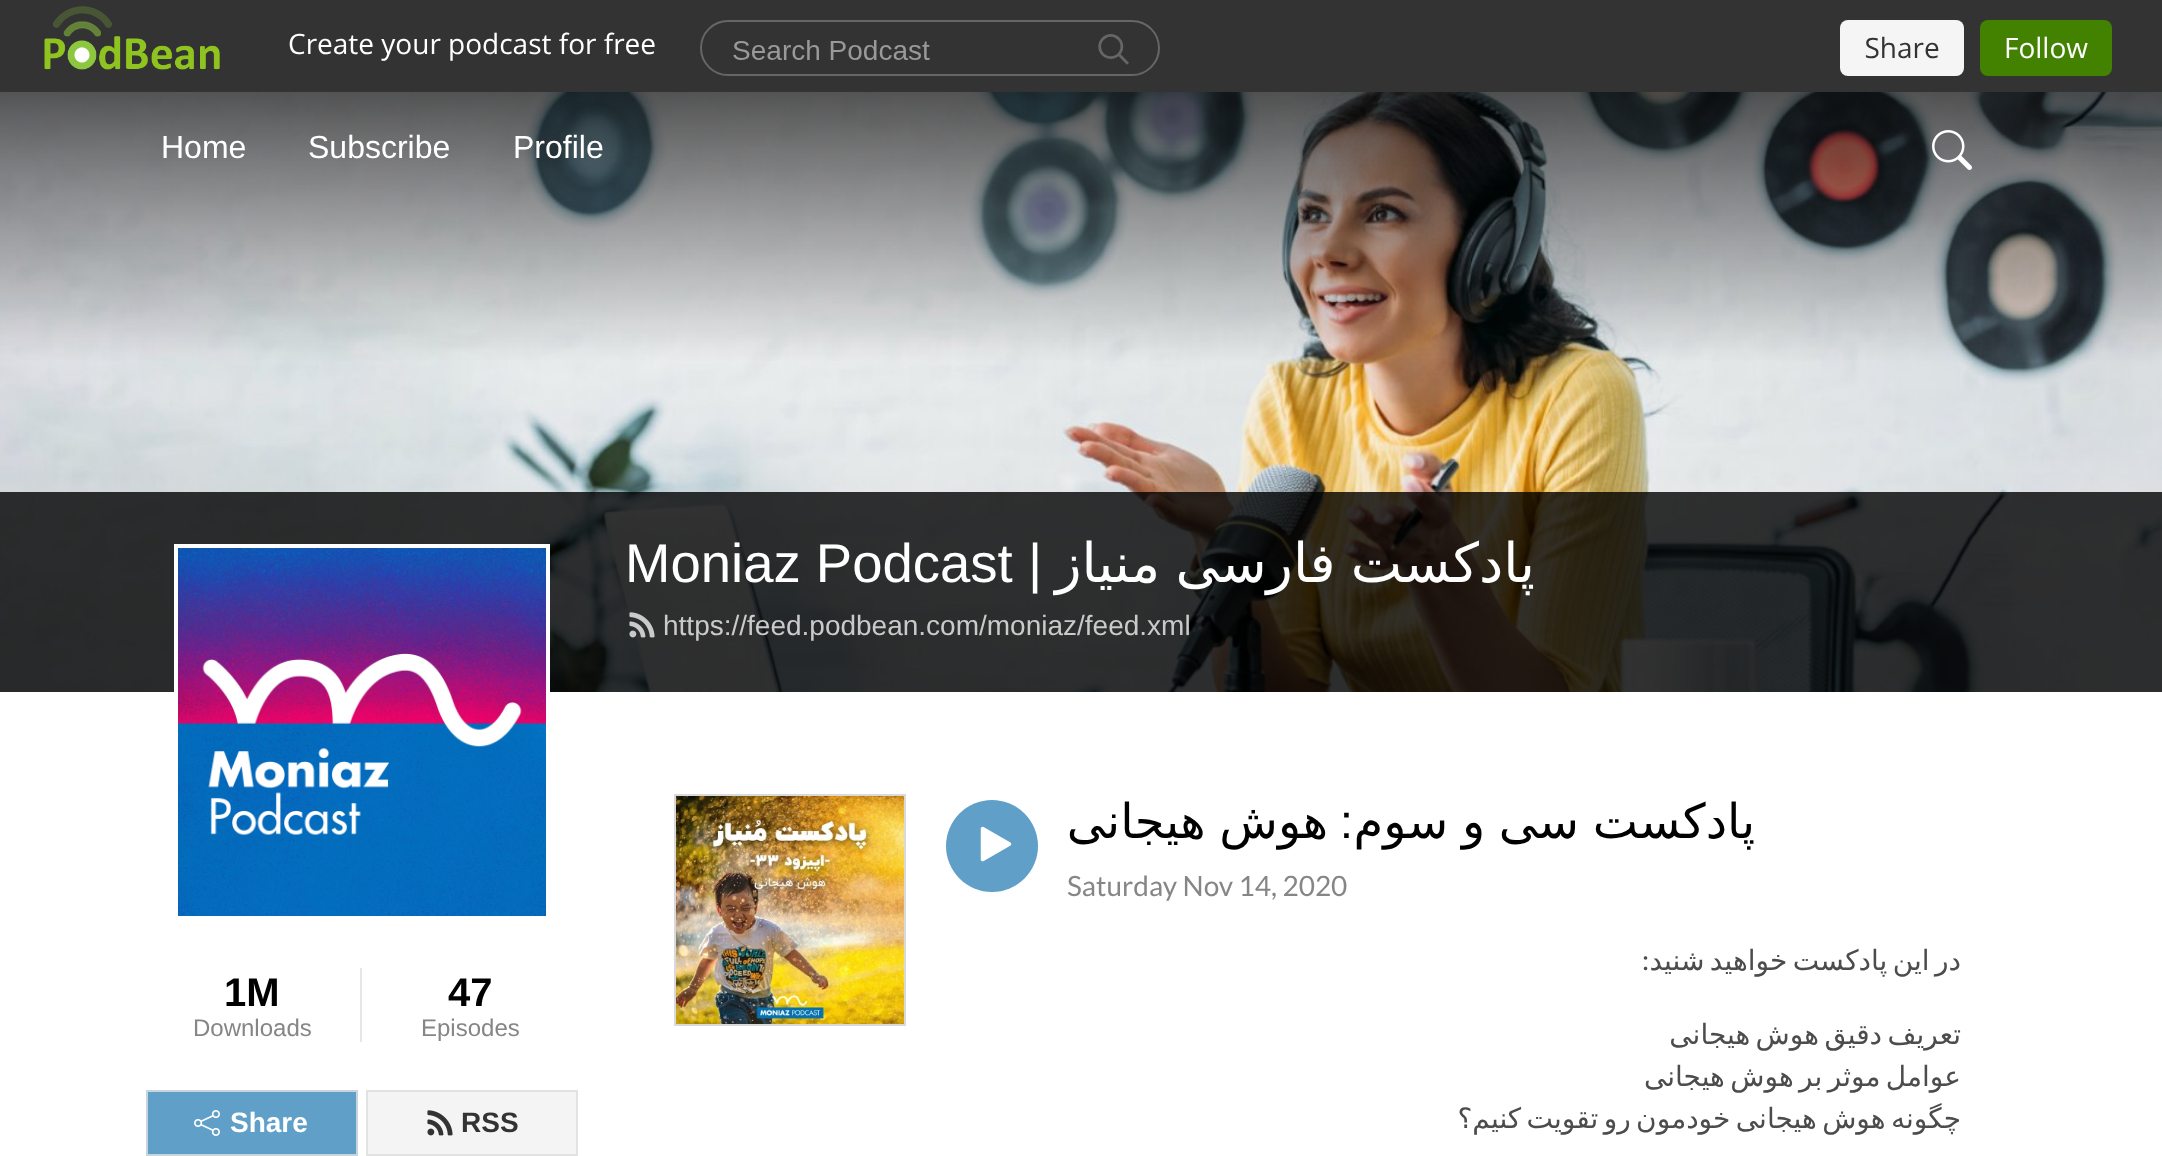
<?xml version="1.0" encoding="UTF-8"?>
<svg xmlns="http://www.w3.org/2000/svg" width="2162" height="1156">
    <rect width="100%" height="100%" fill="#FFFFFF"/>
    <rect x="0" y="0" width="2162" height="92" fill="#333333"/>
    <image x="44" y="6" width="2068" height="70" href="img_01.png"/>
    <image x="0" y="92" width="2162" height="600" href="img_03.png"/>
    <image x="1932" y="130" width="40" height="40" href="img_02.png"/>
    <text x="513" y="158" font-family="Liberation Sans" font-size="32" fill="#FFFFFF">Profile</text>
    <text x="308" y="158" font-family="Liberation Sans" font-size="32" fill="#FFFFFF">Subscribe</text>
    <text x="161" y="158" font-family="Liberation Sans" font-size="32" fill="#FFFFFF">Home</text>
    <rect x="0" y="492" width="2162" height="200" fill="#000000" fill-opacity="0.8"/>
    <text x="1535" y="582" word-spacing="-2" font-family="DejaVu Sans" font-size="54.5" direction="rtl" fill="#FFFFFF">پادکست فارسی منیاز</text>
    <text x="625" y="582" font-family="Liberation Sans" font-size="54.5" fill="#FFFFFF">Moniaz Podcast |</text>
    <text x="663" y="635" font-family="Liberation Sans" font-size="28" fill="#CACACA">https://feed.podbean.com/moniaz/feed.xml</text>
    <image x="629" y="612" width="26" height="26" href="img_04.png"/>
    <text x="1755" y="838" word-spacing="-1.5" font-family="DejaVu Sans" font-size="48" direction="rtl" fill="#000000">پادکست سی و سوم</text>
    <text x="1353" y="838" font-family="Liberation Sans" font-size="48" direction="rtl" fill="#000000">:</text>
    <text x="1328" y="838" word-spacing="-1.5" font-family="DejaVu Sans" font-size="48" direction="rtl" fill="#000000">هوش هیجانی</text>
    <text x="1067" y="896" font-family="Lato" font-size="28" fill="#868686">Saturday Nov 14, 2020</text>
    <circle cx="992" cy="846" r="46" fill="#60A0C8"/>
    <image x="980" y="826" width="32" height="36" href="img_05.png"/>
    <text x="1961" y="970" word-spacing="-3.5" font-family="DejaVu Sans" font-size="28" direction="rtl" fill="#4C4C4C">در این پادکست خواهید شنید</text>
    <text x="1649" y="970" font-family="Lato" font-size="28" direction="rtl" fill="#4C4C4C">:</text>
    <text font-family="DejaVu Sans" font-size="28" direction="rtl" fill="#4C4C4C">
        <tspan x="1961" y="1044" word-spacing="-3.5">تعریف دقیق هوش هیجانی</tspan>
        <tspan x="1961" y="1086" word-spacing="-3.5">عوامل موثر بر هوش هیجانی</tspan>
        <tspan x="1961" y="1128" word-spacing="-3.5">چگونه هوش هیجانی خودمون رو تقویت کنیم؟</tspan>
    </text>
    <rect x="675" y="795" width="230" height="230" fill="none" stroke="#DADADA" stroke-width="2"/>
    <image x="676" y="796" width="228" height="228" href="img_06.png"/>
    <rect x="176" y="546" width="372" height="372" fill="none" stroke="#FFFFFF" stroke-width="4"/>
    <image x="178" y="548" width="368" height="368" href="img_07.png"/>
    <text x="448" y="1006" font-family="Liberation Sans" font-size="40" font-weight="700" fill="#000000">47</text>
    <text x="421" y="1036" font-family="Liberation Sans" font-size="24" fill="#868686">Episodes</text>
    <rect x="360" y="968" width="2" height="74" fill="#E6E6E6"/>
    <text x="224" y="1006" font-family="Liberation Sans" font-size="40" font-weight="700" fill="#000000">1M</text>
    <text x="193" y="1036" font-family="Liberation Sans" font-size="24" fill="#868686">Downloads</text>
    <rect x="367" y="1091" width="210" height="64" fill="#F4F4F4" stroke="#E2E2E2" stroke-width="2"/>
    <text x="461" y="1132" font-family="Liberation Sans" font-size="28" font-weight="700" fill="#333333">RSS</text>
    <image x="427" y="1110" width="26" height="26" href="img_08.png"/>
    <rect x="147" y="1091" width="210" height="64" fill="#60A0C8" stroke="#C8D5DD" stroke-width="2"/>
    <text x="230" y="1132" font-family="Liberation Sans" font-size="28" font-weight="700" fill="#FFFFFF">Share</text>
    <image x="194" y="1110" width="26" height="26" href="img_09.png"/>
</svg>
